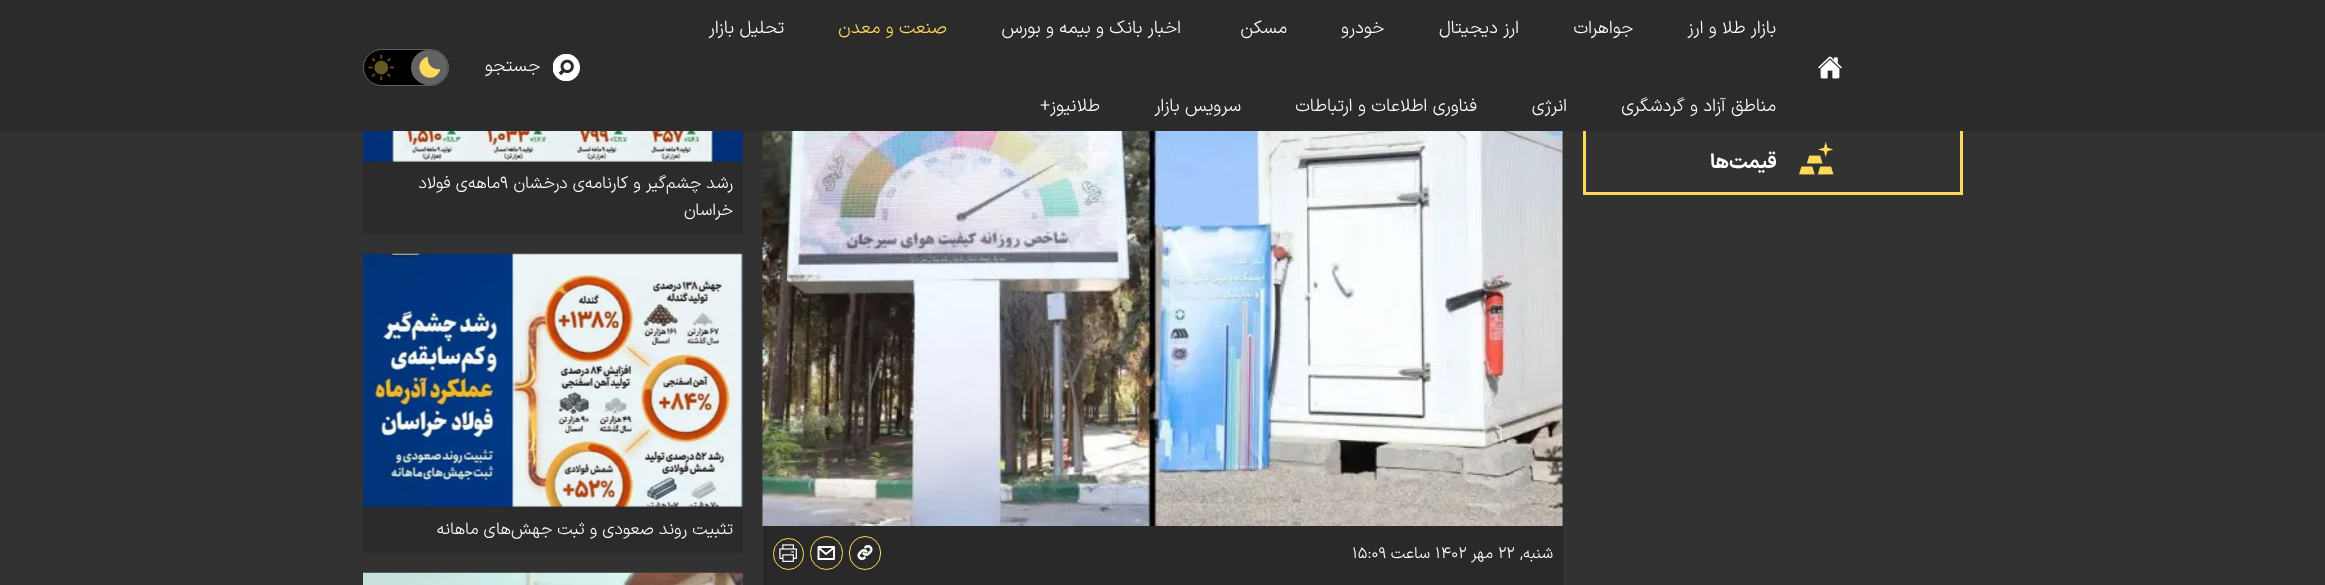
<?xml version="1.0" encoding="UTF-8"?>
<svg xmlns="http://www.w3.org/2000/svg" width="2325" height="585">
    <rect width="100%" height="100%" fill="#323232"/>
    <rect x="1584.5" y="129.5" width="377" height="64" fill="none" stroke="#FFD95A" stroke-width="3"/>
    <rect x="0" y="0" width="2325" height="131" fill="#2B2B2B"/>
    <image x="1818" y="56" width="24" height="23" href="img_01.png"/>
    <text x="1776" y="33" font-family="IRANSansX" font-size="18" font-weight="300" direction="rtl" fill="#FFFFFF">بازار طلا و ارز</text>
    <text x="1633" y="33" font-family="IRANSansX" font-size="18" font-weight="300" direction="rtl" fill="#FFFFFF">جواهرات</text>
    <text x="1519" y="33" font-family="IRANSansX" font-size="18" font-weight="300" direction="rtl" fill="#FFFFFF">ارز دیجیتال</text>
    <text x="1384" y="33" font-family="IRANSansX" font-size="18" font-weight="300" direction="rtl" fill="#FFFFFF">خودرو</text>
    <text x="1287" y="33" font-family="IRANSansX" font-size="18" font-weight="300" direction="rtl" fill="#FFFFFF">مسکن</text>
    <text x="1181" y="33" font-family="IRANSansX" font-size="18" font-weight="300" direction="rtl" fill="#FFFFFF">اخبار بانک و بیمه و بورس</text>
    <text x="947" y="33" font-family="IRANSansX" font-size="18" font-weight="300" direction="rtl" fill="#FFD95A">صنعت و معدن</text>
    <text x="784" y="33" font-family="IRANSansX" font-size="18" font-weight="300" direction="rtl" fill="#FFFFFF">تحلیل بازار</text>
    <text x="1776" y="111" font-family="IRANSansX" font-size="18" font-weight="300" direction="rtl" fill="#FFFFFF">مناطق آزاد و گردشگری</text>
    <text x="1567" y="111" font-family="IRANSansX" font-size="18" font-weight="300" direction="rtl" fill="#FFFFFF">انرژی</text>
    <text x="1477" y="111" font-family="IRANSansX" font-size="18" font-weight="300" direction="rtl" fill="#FFFFFF">فناوری اطلاعات و ارتباطات</text>
    <text x="1241" y="111" font-family="IRANSansX" font-size="18" font-weight="300" direction="rtl" fill="#FFFFFF">سرویس بازار</text>
    <text x="1100" y="111" font-family="IRANSansX" font-size="18" font-weight="300" direction="rtl" fill="#FFFFFF">طلانیوز+</text>
    <image x="553" y="54" width="27" height="27" href="img_02.png"/>
    <text x="540" y="71" font-family="IRANSansX" font-size="18" font-weight="300" direction="rtl" fill="#FFFFFF">جستجو</text>
    <rect x="363.5" y="49.5" width="85" height="36" rx="18" fill="#000000" stroke="#636366"/>
    <rect x="411" y="50" width="37" height="35" rx="17.5" fill="#636366"/>
    <image x="419" y="56" width="22" height="22" href="img_03.png"/>
    <image x="368" y="54" width="26" height="27" href="img_04.png"/>
    <image x="1799" y="141" width="35" height="34" href="img_05.png"/>
    <text x="1777" y="168" font-family="IRANSansX" font-size="20" font-weight="700" direction="rtl" fill="#FFFFFF">قیمت‌ها</text>
    <rect x="363" y="161" width="380" height="73" fill="#2B2B2B"/>
    <image x="363" y="131" width="380" height="31" href="img_06.png"/>
    <text x="733" y="188" font-family="IRANSansX" font-size="17" font-weight="300" direction="rtl" fill="#FFFFFF">رشد چشم‌گیر و کارنامه‌ی درخشان</text>
    <text x="500" y="188" font-family="IRANSansX" font-size="17" font-weight="300" fill="#FFFFFF">۹</text>
    <text x="500" y="188" font-family="IRANSansX" font-size="17" font-weight="300" direction="rtl" fill="#FFFFFF">ماهه‌ی فولاد</text>
    <text x="733" y="215" font-family="IRANSansX" font-size="17" font-weight="300" direction="rtl" fill="#FFFFFF">خراسان</text>
    <rect x="363" y="506" width="380" height="47" fill="#2B2B2B"/>
    <image x="363" y="253" width="380" height="254" href="img_07.png"/>
    <text x="733" y="534" font-family="IRANSansX" font-size="17" font-weight="300" direction="rtl" fill="#FFFFFF">تثبیت روند صعودی و ثبت جهش‌های ماهانه</text>
    <image x="363" y="572" width="380" height="13" href="img_08.png"/>
    <image x="762" y="131" width="801" height="396" href="img_09.png"/>
    <rect x="763" y="526" width="800" height="54" fill="#292929"/>
    <text x="1553" y="558" font-family="IRANSansX" font-size="16" font-weight="300" direction="rtl" fill="#FFFFFF">شنبه,</text>
    <text x="1498" y="558" font-family="IRANSansX" font-size="16" font-weight="300" fill="#FFFFFF">۲۲</text>
    <text x="1493" y="558" font-family="IRANSansX" font-size="16" font-weight="300" direction="rtl" fill="#FFFFFF">مهر</text>
    <text x="1435" y="558" font-family="IRANSansX" font-size="16" font-weight="300" fill="#FFFFFF">۱۴۰۲</text>
    <text x="1430" y="558" font-family="IRANSansX" font-size="16" font-weight="300" direction="rtl" fill="#FFFFFF">ساعت</text>
    <text x="1352" y="558" font-family="IRANSansX" font-size="16" font-weight="300" fill="#FFFFFF">۱۵:۰۹</text>
    <rect x="849.5" y="536.5" width="31" height="33" rx="15.5" fill="none" stroke="#FFD95A"/>
    <image x="857" y="545" width="16" height="15" href="img_10.png"/>
    <rect x="810.5" y="536.5" width="32" height="33" rx="16" fill="none" stroke="#FFD95A"/>
    <path d="M 818.5 547 H 834 V 559 H 818.5 Z M 819 548 L 826 554 L 833.5 548" fill="none" stroke="#FFFFFF" stroke-width="1.9" stroke-linecap="round" stroke-linejoin="round"/>
    <rect x="773.5" y="538.5" width="30" height="31" rx="15" fill="none" stroke="#FFD95A"/>
    <image x="779" y="544" width="18" height="18" href="img_11.png"/>
    <rect x="763" y="580" width="800" height="5" fill="#292929"/>
</svg>
